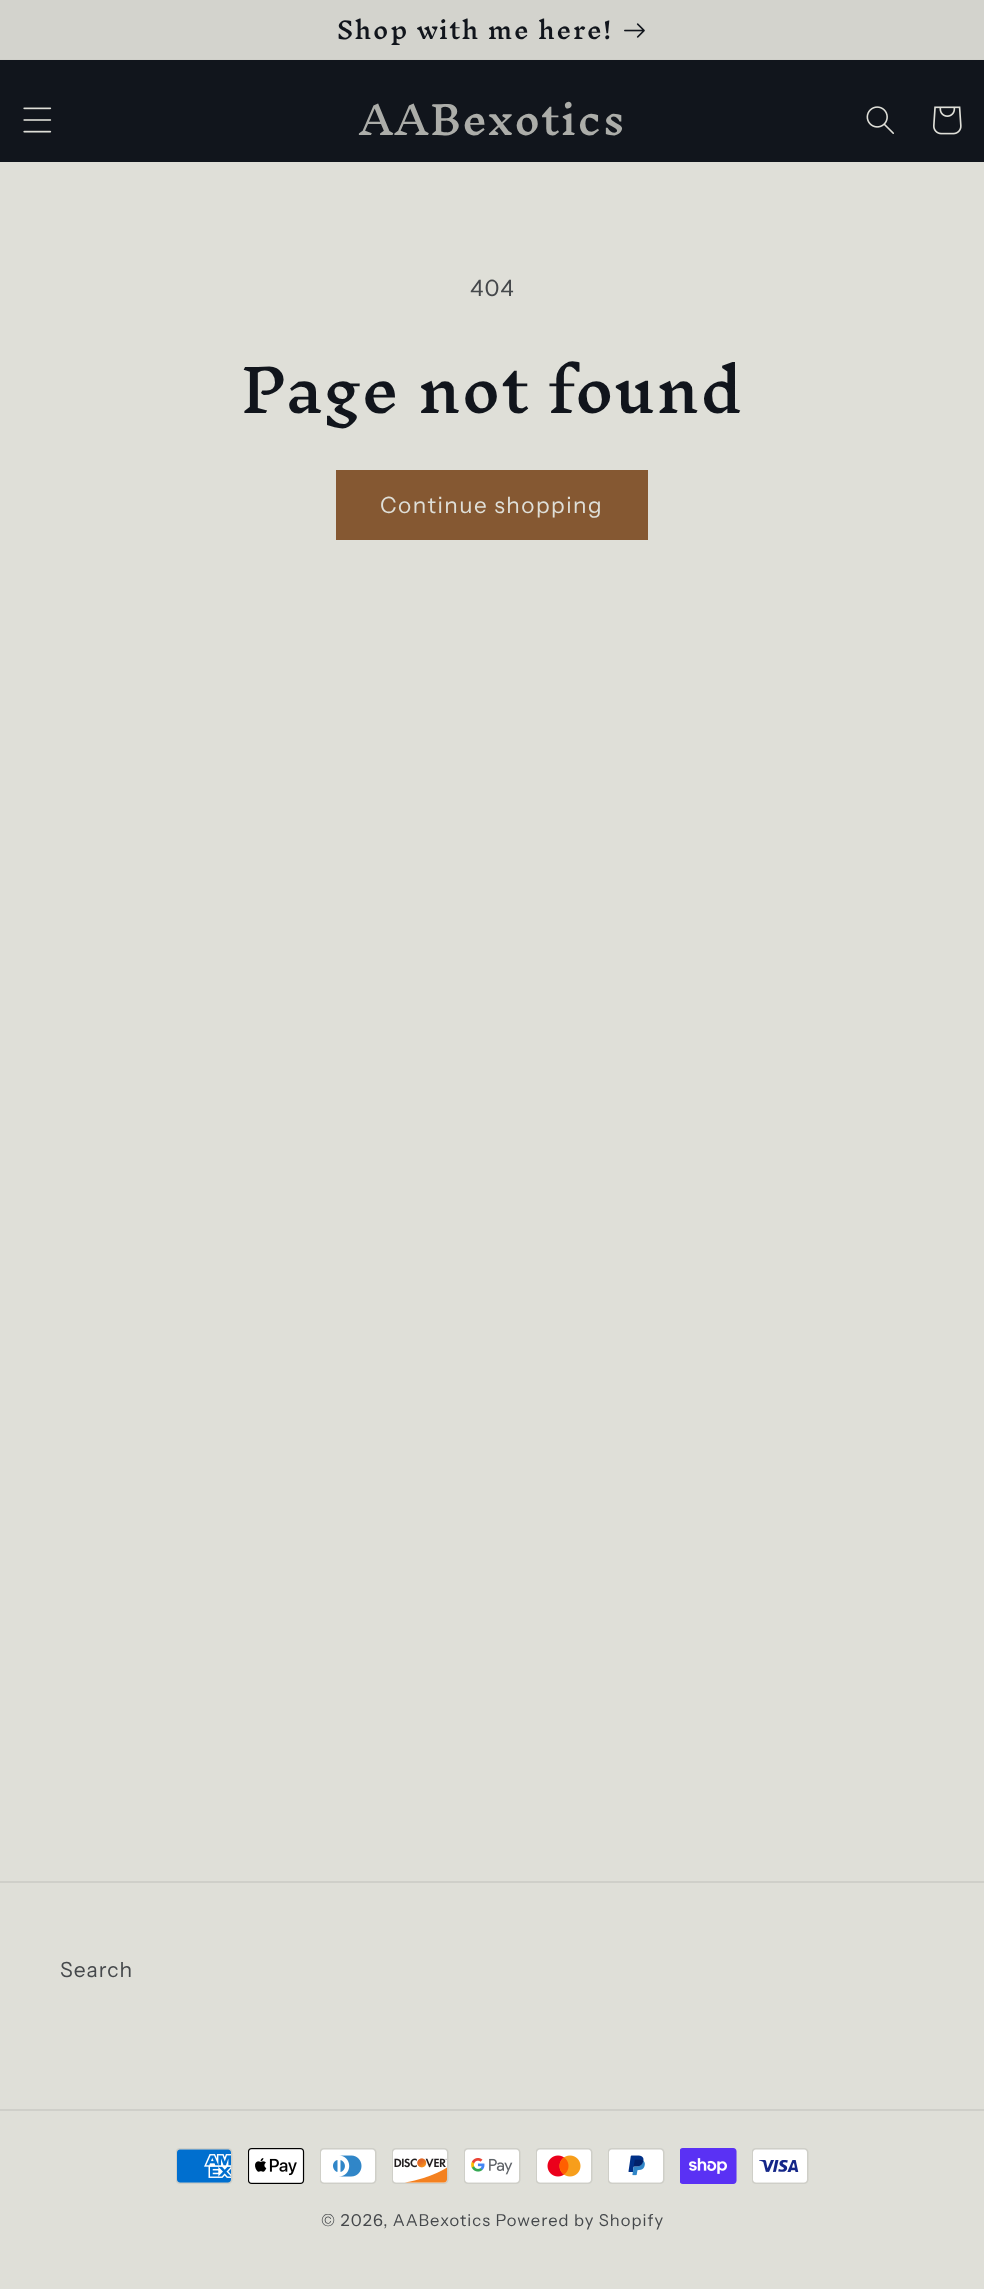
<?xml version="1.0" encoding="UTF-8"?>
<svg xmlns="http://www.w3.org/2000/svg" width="984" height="2289">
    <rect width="100%" height="100%" fill="#DFDFD8"/>
    <rect x="0" y="59" width="984" height="1" fill="#CFCFC9"/>
    <rect x="0" y="0" width="984" height="59" fill="#D3D3CD"/>
    <text x="337" y="39" font-family="Inknut Antiqua" font-size="23.4" font-weight="500" letter-spacing="1.5" fill="#11151C">Shop with me here!</text>
    <image x="624" y="23" width="21" height="15" href="img_01.png"/>
    <rect x="0" y="60" width="984" height="102" fill="#11151C"/>
    <image x="23" y="107" width="29" height="26" href="img_02.png"/>
    <text x="359" y="135" font-family="Inknut Antiqua" font-size="39" font-weight="500" letter-spacing="1.2" fill="#ACADA9">AABexotics</text>
    <image x="866" y="106" width="28" height="28" href="img_03.png"/>
    <image x="933" y="106" width="29" height="29" href="img_04.png"/>
    <text x="470" y="296" font-family="Instrument Sans" font-size="22.5" letter-spacing="1" fill="#45484B">404</text>
    <text x="241" y="413" font-family="Inknut Antiqua" font-size="58.5" font-weight="500" letter-spacing="1.2" fill="#11151C">Page not found</text>
    <rect x="336" y="470" width="312" height="70" fill="#855832"/>
    <text x="380" y="513" font-family="Instrument Sans" font-size="22.5" letter-spacing="1.5" fill="#DFDFD8">Continue shopping</text>
    <rect x="0" y="1881" width="984" height="2" fill="#CFCFC9"/>
    <text x="60" y="1977" font-family="Instrument Sans" font-size="21" letter-spacing="1" fill="#45484B">Search</text>
    <rect x="0" y="2109" width="984" height="2" fill="#CFCFC9"/>
    <image x="176" y="2148" width="57" height="36" href="img_05.png"/>
    <image x="248" y="2148" width="57" height="36" href="img_06.png"/>
    <image x="320" y="2148" width="57" height="36" href="img_07.png"/>
    <image x="392" y="2148" width="57" height="36" href="img_08.png"/>
    <image x="464" y="2148" width="57" height="36" href="img_09.png"/>
    <image x="536" y="2148" width="57" height="36" href="img_10.png"/>
    <image x="608" y="2148" width="57" height="36" href="img_11.png"/>
    <image x="680" y="2148" width="57" height="36" href="img_12.png"/>
    <image x="752" y="2148" width="57" height="36" href="img_13.png"/>
    <text x="321" y="2226" font-family="Instrument Sans" font-size="16.5" letter-spacing="1.05" fill="#45484B">© 2026, AABexotics Powered by Shopify</text>
</svg>
